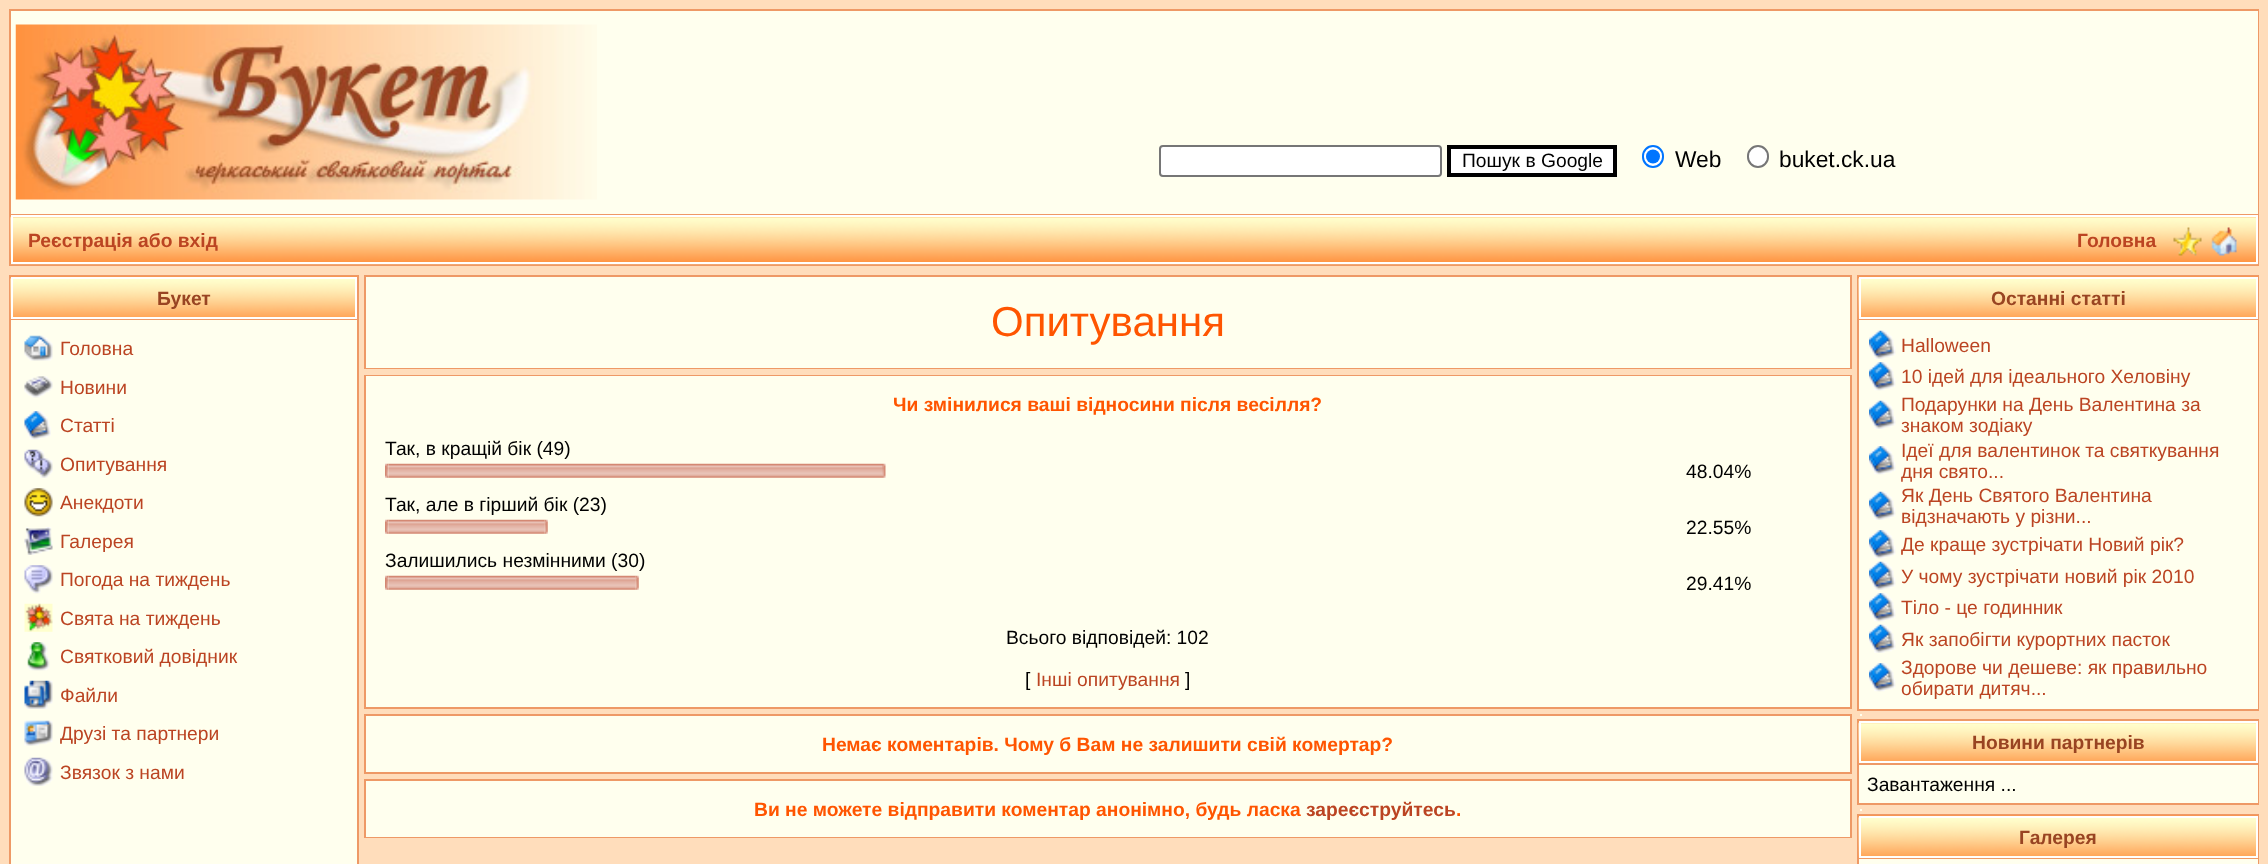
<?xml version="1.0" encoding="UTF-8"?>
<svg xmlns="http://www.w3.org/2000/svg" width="2268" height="864">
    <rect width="100%" height="100%" fill="#FFDDBB"/>
    <rect x="9" y="9" width="2250" height="257" fill="#EE9966"/>
    <rect x="11" y="11" width="2247" height="203" fill="#FFFFEE"/>
    <image x="15" y="24" width="582" height="176" href="img_01.png"/>
    <rect x="1160" y="146" width="281" height="30" rx="3" fill="#FFFFFF" stroke="#767676" stroke-width="2"/>
    <rect x="1449" y="147" width="166" height="28" fill="#FFFFFF" stroke="#000000" stroke-width="4"/>
    <text x="1462" y="167" font-family="Liberation Sans" font-size="19.25" fill="#000000">Пошук в Google</text>
    <rect x="1643" y="146" width="20" height="21" rx="10" fill="#FFFFFF" stroke="#0075FF" stroke-width="2"/>
    <circle cx="1653" cy="156.5" r="7" fill="#0075FF"/>
    <text x="1675" y="167" font-family="Liberation Sans" font-size="22.75" fill="#000000">Web</text>
    <rect x="1748" y="146" width="20" height="21" rx="10" fill="#FFFFFF" stroke="#767676" stroke-width="2"/>
    <text x="1779" y="167" font-family="Liberation Sans" font-size="22.75" fill="#000000">buket.ck.ua</text>
    <image x="10" y="215" width="2248" height="50" href="img_02.png"/>
    <rect x="12" y="216" width="2245" height="47" fill="none" stroke="#FFFFFF" stroke-width="2"/>
    <text x="28" y="247" font-family="Liberation Sans" font-size="19.25" font-weight="700" fill="#BB4422">Реєстрація або вхід</text>
    <text x="2077" y="247" font-family="Liberation Sans" font-size="19.25" font-weight="700" fill="#BB4422">Головна</text>
    <image x="2173" y="227" width="29" height="29" href="img_03.png"/>
    <image x="2211" y="227" width="26" height="29" href="img_04.png"/>
    <rect x="9" y="275" width="350" height="589" fill="#EE9966"/>
    <image x="10" y="276" width="347" height="43" href="img_05.png"/>
    <rect x="12" y="278" width="344" height="40" fill="none" stroke="#FFFFFF" stroke-width="2"/>
    <text x="157" y="305" font-family="Liberation Sans" font-size="19.25" font-weight="700" fill="#994422">Букет</text>
    <rect x="11" y="320" width="346" height="544" fill="#FFFFEE"/>
    <image x="24" y="335" width="29" height="26" href="img_06.png"/>
    <text x="60" y="355" font-family="Liberation Sans" font-size="19.25" fill="#BB4422">Головна</text>
    <image x="24" y="376" width="29" height="22" href="img_07.png"/>
    <text x="60" y="394" font-family="Liberation Sans" font-size="19.25" fill="#BB4422">Новини</text>
    <image x="24" y="411" width="27" height="29" href="img_08.png"/>
    <text x="60" y="432" font-family="Liberation Sans" font-size="19.25" fill="#BB4422">Статті</text>
    <image x="24" y="449" width="29" height="29" href="img_09.png"/>
    <text x="60" y="471" font-family="Liberation Sans" font-size="19.25" fill="#BB4422">Опитування</text>
    <image x="24" y="488" width="29" height="29" href="img_10.png"/>
    <text x="60" y="509" font-family="Liberation Sans" font-size="19.25" fill="#BB4422">Анекдоти</text>
    <image x="24" y="527" width="29" height="28" href="img_11.png"/>
    <text x="60" y="548" font-family="Liberation Sans" font-size="19.25" fill="#BB4422">Галерея</text>
    <image x="24" y="565" width="29" height="29" href="img_12.png"/>
    <text x="60" y="586" font-family="Liberation Sans" font-size="19.25" fill="#BB4422">Погода на тиждень</text>
    <image x="24" y="603" width="29" height="29" href="img_13.png"/>
    <text x="60" y="625" font-family="Liberation Sans" font-size="19.25" fill="#BB4422">Свята на тиждень</text>
    <image x="27" y="642" width="23" height="29" href="img_14.png"/>
    <text x="60" y="663" font-family="Liberation Sans" font-size="19.25" fill="#BB4422">Святковий довідник</text>
    <image x="24" y="680" width="29" height="29" href="img_15.png"/>
    <text x="60" y="702" font-family="Liberation Sans" font-size="19.25" fill="#BB4422">Файли</text>
    <image x="24" y="720" width="29" height="26" href="img_16.png"/>
    <text x="60" y="740" font-family="Liberation Sans" font-size="19.25" fill="#BB4422">Друзі та партнери</text>
    <image x="24" y="757" width="29" height="29" href="img_17.png"/>
    <text x="60" y="779" font-family="Liberation Sans" font-size="19.25" fill="#BB4422">Звязок з нами</text>
    <rect x="365" y="276" width="1486" height="92" fill="none" stroke="#EE9966" stroke-width="2"/>
    <rect x="366" y="277" width="1484" height="91" fill="#FFFFEE"/>
    <text x="991" y="336" font-family="Liberation Sans" font-size="42" fill="#FF5500">Опитування</text>
    <rect x="365" y="376" width="1486" height="332" fill="none" stroke="#EE9966" stroke-width="2"/>
    <rect x="366" y="376" width="1484" height="331" fill="#FFFFEE"/>
    <text x="893" y="411" font-family="Liberation Sans" font-size="19.25" font-weight="700" fill="#FF5500">Чи змінилися ваші відносини після весілля?</text>
    <text x="385" y="455" font-family="Liberation Sans" font-size="19.25" fill="#000000">Так, в кращій бік (49)</text>
    <image x="385" y="463" width="4" height="15" href="img_18.png"/>
    <image x="388" y="463" width="494" height="15" href="img_19.png"/>
    <image x="882" y="463" width="4" height="15" href="img_20.png"/>
    <text x="1686" y="478" font-family="Liberation Sans" font-size="19.25" fill="#000000">48.04%</text>
    <text x="385" y="511" font-family="Liberation Sans" font-size="19.25" fill="#000000">Так, але в гірший бік (23)</text>
    <image x="385" y="519" width="4" height="15" href="img_18.png"/>
    <image x="388" y="519" width="157" height="15" href="img_21.png"/>
    <image x="544" y="519" width="4" height="15" href="img_22.png"/>
    <text x="1686" y="534" font-family="Liberation Sans" font-size="19.25" fill="#000000">22.55%</text>
    <text x="385" y="567" font-family="Liberation Sans" font-size="19.25" fill="#000000">Залишились незмінними (30)</text>
    <image x="385" y="575" width="4" height="15" href="img_18.png"/>
    <image x="388" y="575" width="248" height="15" href="img_23.png"/>
    <image x="635" y="575" width="4" height="15" href="img_22.png"/>
    <text x="1686" y="590" font-family="Liberation Sans" font-size="19.25" fill="#000000">29.41%</text>
    <text x="1006" y="644" font-family="Liberation Sans" font-size="19.25" fill="#000000">Всього відповідей: 102</text>
    <text x="1025" y="686" font-family="Liberation Sans" font-size="19.25" fill="#000000">[</text>
    <text x="1036" y="686" font-family="Liberation Sans" font-size="19.25" fill="#BB4422">Інші опитування</text>
    <text x="1185" y="686" font-family="Liberation Sans" font-size="19.25" fill="#000000">]</text>
    <rect x="365" y="715" width="1486" height="58" fill="none" stroke="#EE9966" stroke-width="2"/>
    <rect x="366" y="716" width="1484" height="56" fill="#FFFFEE"/>
    <text x="822" y="751" font-family="Liberation Sans" font-size="19.25" font-weight="700" fill="#FF5500">Немає коментарів. Чому б Вам не залишити свій комертар?</text>
    <rect x="365" y="780" width="1486" height="57" fill="none" stroke="#EE9966" stroke-width="2"/>
    <rect x="366" y="781" width="1484" height="56" fill="#FFFFEE"/>
    <text x="754" y="816" font-family="Liberation Sans" font-size="19.25" font-weight="700" fill="#FF5500">Ви не можете відправити коментар анонімно, будь ласка</text>
    <text x="1306" y="816" font-family="Liberation Sans" font-size="19.25" font-weight="700" fill="#BB4422">зареєструйтесь</text>
    <text x="1456" y="816" font-family="Liberation Sans" font-size="19.25" font-weight="700" fill="#FF5500">.</text>
    <rect x="1857" y="275" width="402" height="436" fill="#EE9966"/>
    <image x="1858" y="276" width="400" height="43" href="img_24.png"/>
    <rect x="1860" y="278" width="397" height="40" fill="none" stroke="#FFFFFF" stroke-width="2"/>
    <text x="1991" y="305" font-family="Liberation Sans" font-size="19.25" font-weight="700" fill="#994422">Останні статті</text>
    <rect x="1859" y="320" width="399" height="389" fill="#FFFFEE"/>
    <image x="1869" y="330" width="27" height="29" href="img_25.png"/>
    <text x="1901" y="352" font-family="Liberation Sans" font-size="19.25" fill="#BB4422">Halloween</text>
    <image x="1869" y="362" width="27" height="29" href="img_26.png"/>
    <text x="1901" y="383" font-family="Liberation Sans" font-size="19.25" fill="#BB4422">10 ідей для ідеального Хеловіну</text>
    <image x="1869" y="400" width="27" height="29" href="img_25.png"/>
    <text font-family="Liberation Sans" font-size="19.25" fill="#BB4422">
        <tspan x="1901" y="411">Подарунки на День Валентина за</tspan>
        <tspan x="1901" y="432">знаком зодіаку</tspan>
    </text>
    <image x="1869" y="446" width="27" height="29" href="img_26.png"/>
    <text font-family="Liberation Sans" font-size="19.25" fill="#BB4422">
        <tspan x="1901" y="457">Ідеї для валентинок та святкування</tspan>
        <tspan x="1901" y="478">дня свято...</tspan>
    </text>
    <image x="1869" y="491" width="27" height="29" href="img_25.png"/>
    <text font-family="Liberation Sans" font-size="19.25" fill="#BB4422">
        <tspan x="1901" y="502">Як День Святого Валентина</tspan>
        <tspan x="1901" y="523">відзначають у різни...</tspan>
    </text>
    <image x="1869" y="530" width="27" height="29" href="img_26.png"/>
    <text x="1901" y="551" font-family="Liberation Sans" font-size="19.25" fill="#BB4422">Де краще зустрічати Новий рік?</text>
    <image x="1869" y="561" width="27" height="29" href="img_25.png"/>
    <text x="1901" y="583" font-family="Liberation Sans" font-size="19.25" fill="#BB4422">У чому зустрічати новий рік 2010</text>
    <image x="1869" y="593" width="27" height="29" href="img_26.png"/>
    <text x="1901" y="614" font-family="Liberation Sans" font-size="19.25" fill="#BB4422">Тіло - це годинник</text>
    <image x="1869" y="624" width="27" height="29" href="img_25.png"/>
    <text x="1901" y="646" font-family="Liberation Sans" font-size="19.25" fill="#BB4422">Як запобігти курортних пасток</text>
    <image x="1869" y="663" width="27" height="29" href="img_26.png"/>
    <text font-family="Liberation Sans" font-size="19.25" fill="#BB4422">
        <tspan x="1901" y="674">Здорове чи дешеве: як правильно</tspan>
        <tspan x="1901" y="695">обирати дитяч...</tspan>
    </text>
    <rect x="1860" y="714" width="2" height="2" fill="#FFFFEE"/>
    <rect x="1857" y="719" width="402" height="86" fill="#EE9966"/>
    <image x="1858" y="721" width="398" height="42" href="img_27.png"/>
    <rect x="1860" y="722" width="397" height="40" fill="none" stroke="#FFFFFF" stroke-width="2"/>
    <text x="1972" y="749" font-family="Liberation Sans" font-size="19.25" font-weight="700" fill="#994422">Новини партнерів</text>
    <rect x="1859" y="765" width="399" height="38" fill="#FFFFEE"/>
    <text x="1867" y="791" font-family="Liberation Sans" font-size="19.25" fill="#000000">Завантаження ...</text>
    <rect x="1860" y="809" width="2" height="2" fill="#FFFFEE"/>
    <rect x="1857" y="814" width="402" height="50" fill="#EE9966"/>
    <image x="1858" y="815" width="400" height="43" href="img_24.png"/>
    <rect x="1860" y="817" width="397" height="40" fill="none" stroke="#FFFFFF" stroke-width="2"/>
    <text x="2019" y="844" font-family="Liberation Sans" font-size="19.25" font-weight="700" fill="#994422">Галерея</text>
    <rect x="1859" y="859" width="399" height="5" fill="#FFFFEE"/>
</svg>
